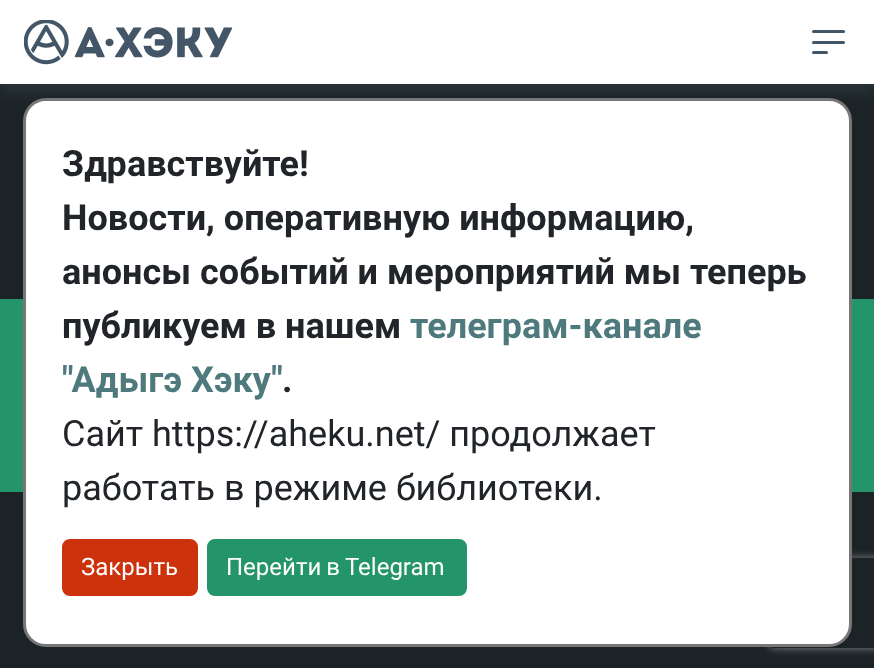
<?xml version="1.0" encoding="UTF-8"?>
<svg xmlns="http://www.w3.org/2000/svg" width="874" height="668">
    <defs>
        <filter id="blur1" x="-50%" y="-200%" width="200%" height="500%"><feGaussianBlur stdDeviation="7.5"/></filter>
        <clipPath id="clip1"><path d="M 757 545 H 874 V 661 H 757 Z M 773 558 H 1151 C 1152.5 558 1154 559.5 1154 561 V 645 C 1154 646.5 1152.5 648 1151 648 H 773 C 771.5 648 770 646.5 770 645 V 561 C 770 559.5 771.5 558 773 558 Z" clip-rule="evenodd"/></clipPath>
        <filter id="blur2" x="-50%" y="-200%" width="200%" height="500%"><feGaussianBlur stdDeviation="4"/></filter>
    </defs>
    <rect width="100%" height="100%" fill="#1B2327"/>
    <rect x="0" y="8" width="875" height="84" fill="#8A9BA5" fill-opacity="0.15" filter="url(#blur1)"/>
    <rect x="0" y="0" width="874" height="84" fill="#FFFFFF"/>
    <image x="24" y="20" width="209" height="45" href="img_01.png"/>
    <rect x="812" y="30" width="33" height="3" rx="1.5" fill="#435667"/>
    <rect x="812" y="41" width="33" height="3" rx="1.5" fill="#435667"/>
    <rect x="812" y="51" width="16" height="3" rx="1.5" fill="#435667"/>
    <rect x="0" y="299" width="874" height="193" fill="#24956A"/>
    <g clip-path="url(#clip1)">
        <rect x="770" y="558" width="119" height="90" rx="3" fill="#808080" filter="url(#blur2)"/>
    </g>
    <rect x="24.5" y="99.5" width="826" height="546" rx="21.5" fill="#FFFFFF" stroke="#777777" stroke-width="3"/>
    <text font-family="Roboto" font-size="36" font-weight="700" fill="#212529">
        <tspan x="62" y="176">Здравствуйте!</tspan>
        <tspan x="62" y="230">Новости, оперативную информацию,</tspan>
        <tspan x="62" y="284">анонсы событий и мероприятий мы теперь</tspan>
        <tspan x="62" y="338">публикуем в нашем</tspan>
    </text>
    <text x="410" y="338" font-family="Roboto" font-size="36" font-weight="700" fill="#4E7A7E">телеграм-канале</text>
    <text x="62" y="392" font-family="Roboto" font-size="36" font-weight="700" fill="#4E7A7E">"Адыгэ Хэку"</text>
    <text x="282" y="392" font-family="Roboto" font-size="36" font-weight="700" fill="#212529">.</text>
    <text font-family="Roboto" font-size="36" fill="#212529">
        <tspan x="62" y="446">Сайт https://aheku.net/ продолжает</tspan>
        <tspan x="62" y="500">работать в режиме библиотеки.</tspan>
    </text>
    <rect x="63" y="540" width="134" height="55" rx="7" fill="#CC330D" stroke="#CC330D" stroke-width="2"/>
    <text x="81" y="575" font-family="Roboto" font-size="24" fill="#FFFFFF">Закрыть</text>
    <rect x="208" y="540" width="258" height="55" rx="7" fill="#24956A" stroke="#24956A" stroke-width="2"/>
    <text x="226" y="575" word-spacing="-1" font-family="Roboto" font-size="24" fill="#FFFFFF">Перейти в Telegram</text>
</svg>
